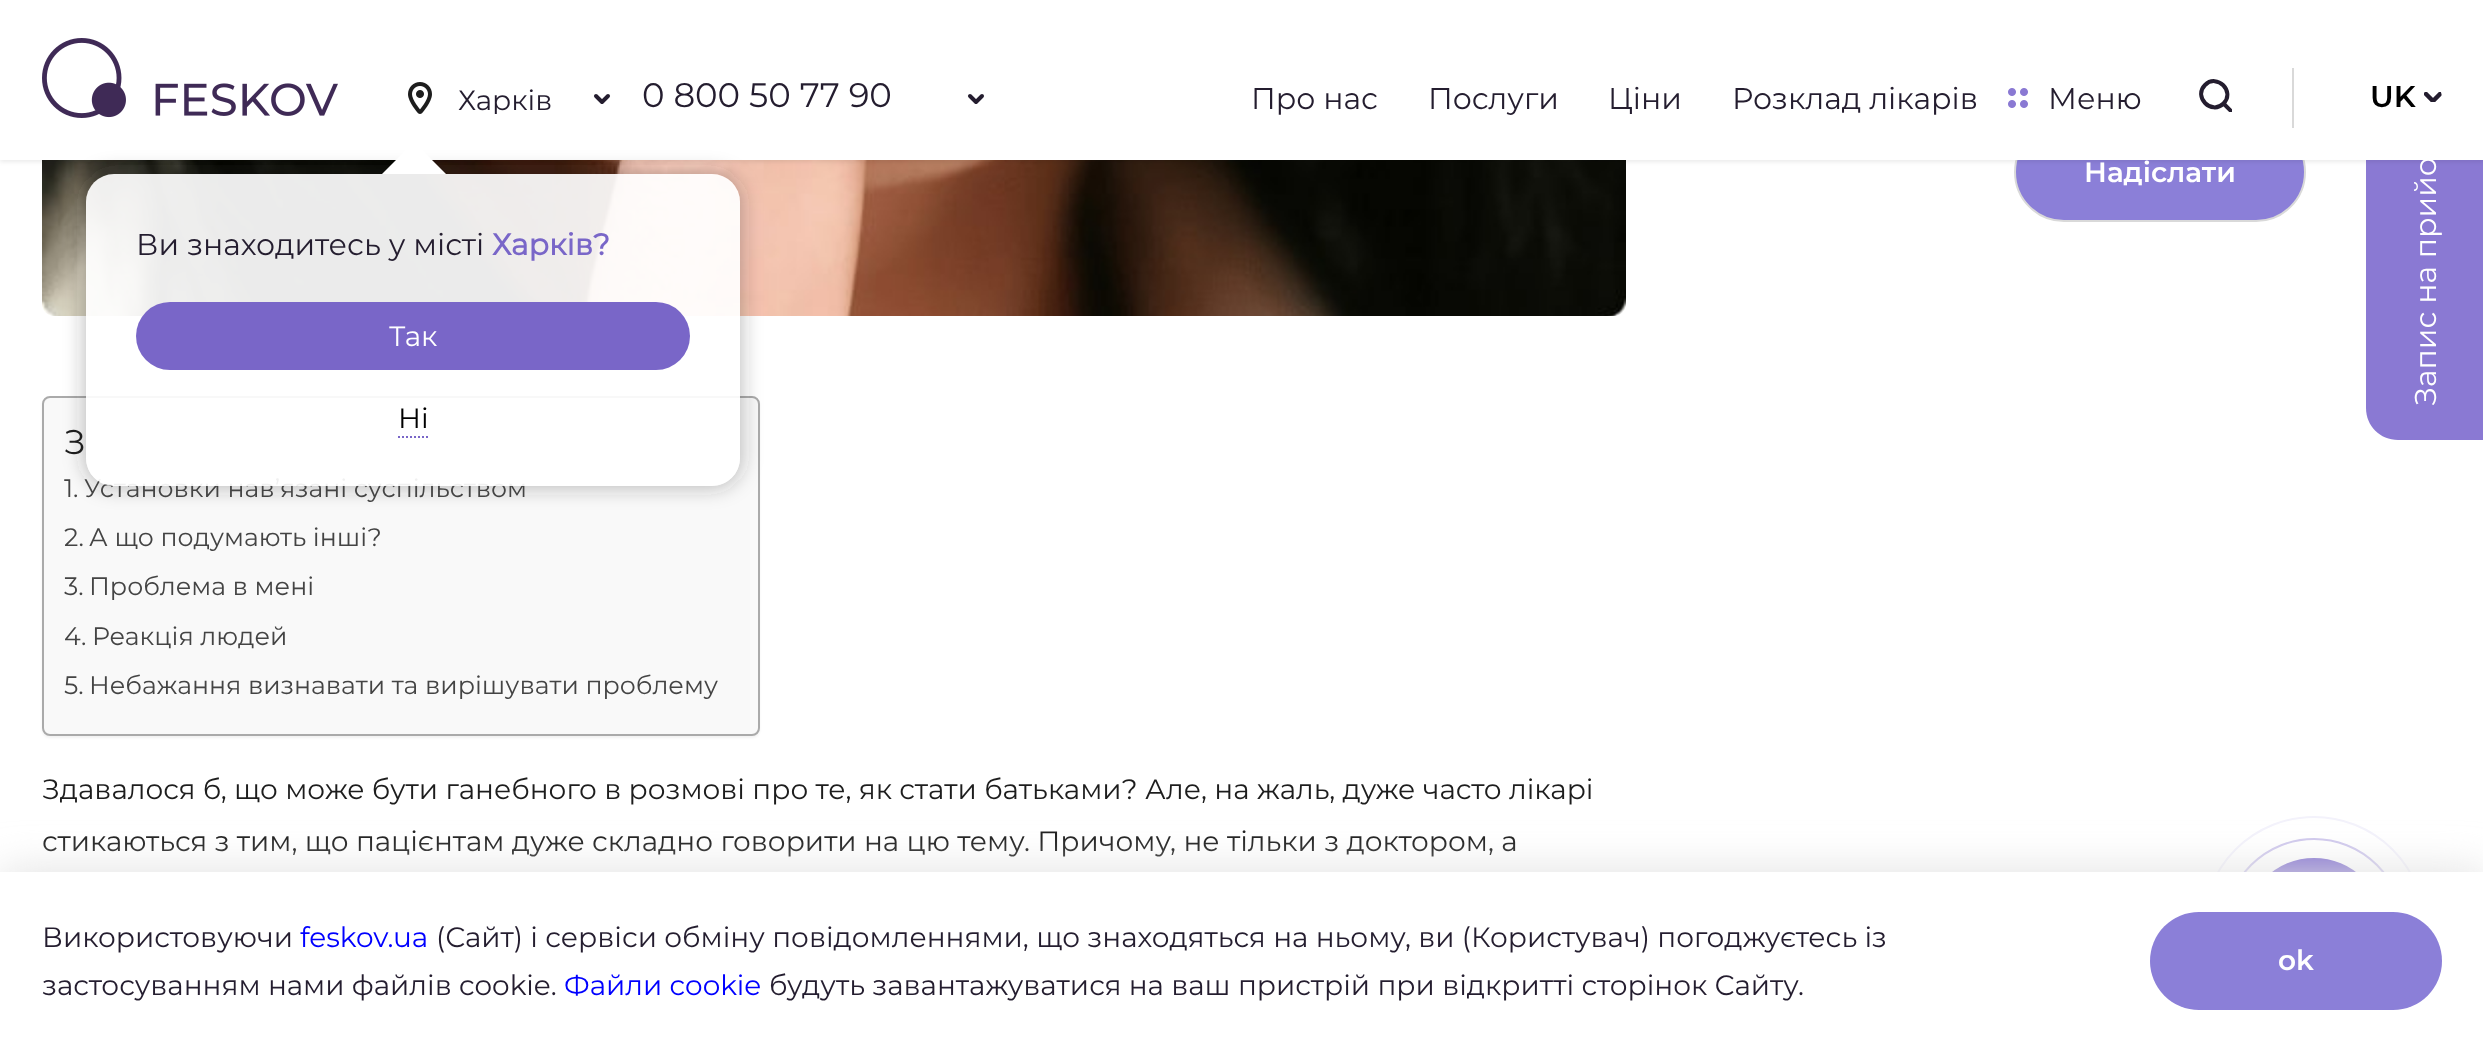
<?xml version="1.0" encoding="UTF-8"?>
<svg xmlns="http://www.w3.org/2000/svg" width="2483" height="1050">
    <defs>
        <filter id="blur1" x="-50%" y="-200%" width="200%" height="500%"><feGaussianBlur stdDeviation="2"/></filter>
        <clipPath id="clip1"><rect x="458" y="86" width="148" height="28"/></clipPath>
        <filter id="blur2" x="-50%" y="-200%" width="200%" height="500%"><feGaussianBlur stdDeviation="1"/></filter>
        <clipPath id="clip2"><path d="M 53 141 H 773 V 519 H 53 Z M 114 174 H 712 C 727.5 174 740 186.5 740 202 V 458 C 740 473.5 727.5 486 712 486 H 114 C 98.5 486 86 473.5 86 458 V 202 C 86 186.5 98.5 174 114 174 Z" clip-rule="evenodd"/></clipPath>
        <filter id="blur3" x="-50%" y="-200%" width="200%" height="500%"><feGaussianBlur stdDeviation="10"/></filter>
        <clipPath id="clip3"><rect x="2192" y="72" width="40" height="40"/></clipPath>
        <clipPath id="clip4"><rect x="2424" y="92" width="18" height="10"/></clipPath>
        <clipPath id="clip5"><rect x="2350" y="74" width="92" height="50" rx="25"/></clipPath>
        <filter id="blur4" x="-50%" y="-200%" width="200%" height="500%"><feGaussianBlur stdDeviation="22"/></filter>
    </defs>
    <rect width="100%" height="100%" fill="#FFFFFF"/>
    <path d="M 2366 408 V 132 C 2366 114 2380 100 2398 100 H 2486 V 440 H 2398 C 2380 440 2366 426 2366 408 Z" fill="#8A79D3"/>
    <rect x="2015" y="123" width="290" height="98" rx="49" fill="#8B7FD8" stroke="#D9D9D9" stroke-width="2"/>
    <image x="42" y="160" width="1584" height="156" href="img_04.png"/>
    <rect x="0" y="2" width="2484" height="160" fill="#000000" fill-opacity="0.08" filter="url(#blur1)"/>
    <rect x="0" y="0" width="2483" height="160" fill="#FFFFFF"/>
    <image x="42" y="38" width="296" height="80" href="img_01.png"/>
    <image x="408" y="82" width="24" height="32" href="img_02.png"/>
    <g clip-path="url(#clip1)">
        <text x="458" y="110" font-family="Montserrat" font-size="28" fill="#241D2F">Харків</text>
    </g>
    <path d="M 596 96 L 602 102 L 608 96" fill="none" stroke="#241D2F" stroke-width="4" stroke-linecap="round" stroke-linejoin="round"/>
    <text x="642" y="107" font-family="Montserrat" font-size="34" fill="#241D2F">0 800 50 77 90</text>
    <path d="M 970 96 L 976 102 L 982 96" fill="none" stroke="#241D2F" stroke-width="4" stroke-linecap="round" stroke-linejoin="round"/>
    <rect x="42" y="398" width="718" height="340" rx="8" fill="#000000" fill-opacity="0.05" filter="url(#blur2)"/>
    <rect x="43" y="397" width="716" height="338" rx="7" fill="#F9F9F9" stroke="#AAAAAA" stroke-width="2"/>
    <g clip-path="url(#clip2)">
        <rect x="84" y="172" width="658" height="316" rx="30" fill="#323232" fill-opacity="0.3" filter="url(#blur3)"/>
    </g>
    <text x="84" y="497" font-family="Montserrat" font-size="25.25" fill="#444444">Установки нав’язані суспільством</text>
    <rect x="86" y="174" width="654" height="312" rx="28" fill="#FFFFFF" fill-opacity="0.92"/>
    <path d="M 446 174 H 382 L 414 142 Z" fill="#FFFFFF"/>
    <text x="136" y="255" font-family="Montserrat" font-size="30" fill="#241D2F">Ви знаходитесь у місті</text>
    <text x="492" y="255" font-family="Montserrat" font-size="30" font-weight="700" fill="#7966C8">Харків?</text>
    <rect x="136" y="302" width="554" height="68" rx="34" fill="#7966C8"/>
    <text x="389" y="346" font-family="Montserrat" font-size="28" fill="#FFFFFF">Так</text>
    <text x="398" y="428" font-family="Montserrat" font-size="28" fill="#000000">Ні</text>
    <path d="M 398 437 H 428" fill="none" stroke="#7966C8" stroke-width="2" stroke-dasharray="2 2"/>
    <text x="1251" y="109" font-family="Montserrat" font-size="30" fill="#241D2F">Про нас</text>
    <text x="1428" y="109" font-family="Montserrat" font-size="30" fill="#241D2F">Послуги</text>
    <text x="1608" y="109" font-family="Montserrat" font-size="30" fill="#241D2F">Ціни</text>
    <text x="1732" y="109" font-family="Montserrat" font-size="30" fill="#241D2F">Розклад лікарів</text>
    <image x="2008" y="88" width="20" height="20" href="img_03.png"/>
    <text x="2048" y="109" font-family="Montserrat" font-size="30" fill="#241D2F">Меню</text>
    <rect x="2292" y="68" width="2" height="60" fill="#D9D9D9"/>
    <g clip-path="url(#clip3)">
        <path d="M 2223.5 103.5 C 2211.5 115.5 2193 97 2205 85 C 2217 73 2235.5 91.5 2223.5 103.5 Z M 2223.5 103.5 L 2232.5 112.5" fill="none" stroke="#241D2F" stroke-width="4" stroke-linecap="round"/>
    </g>
    <text x="2370" y="107" font-family="Montserrat" font-size="30" font-weight="600" fill="#000000">UK</text>
    <g clip-path="url(#clip4)">
        <g clip-path="url(#clip5)">
            <path d="M 2426 94 L 2433 101 L 2440 94" fill="none" stroke="#241D2F" stroke-width="4.5" stroke-linecap="round" stroke-linejoin="round"/>
        </g>
    </g>
    <text x="2436" y="406" transform="rotate(-90 2436 406)" font-family="Montserrat" font-size="30" fill="#FFFFFF">Запис на прийом</text>
    <text x="2084" y="182" font-family="Montserrat" font-size="28" font-weight="600" fill="#FFFFFF">Надіслати</text>
    <text x="64" y="454" font-family="Montserrat" font-size="34" fill="#1D1D1D">З</text>
    <text font-family="Montserrat" font-size="25.25" fill="#444444">
        <tspan x="64" y="497">1.</tspan>
        <tspan x="64" y="546">2.</tspan>
    </text>
    <text x="89" y="546" font-family="Montserrat" font-size="25.25" fill="#444444">А що подумають інші?</text>
    <text x="64" y="595" font-family="Montserrat" font-size="25.25" fill="#444444">3.</text>
    <text x="89" y="595" font-family="Montserrat" font-size="25.25" fill="#444444">Проблема в мені</text>
    <text x="64" y="645" font-family="Montserrat" font-size="25.25" fill="#444444">4</text>
    <text x="81" y="645" font-family="Montserrat" font-size="25.25" fill="#444444">.</text>
    <text x="92" y="645" font-family="Montserrat" font-size="25.25" fill="#444444">Реакція людей</text>
    <text x="64" y="694" font-family="Montserrat" font-size="25.25" fill="#444444">5.</text>
    <text x="89" y="694" font-family="Montserrat" font-size="25.25" fill="#444444">Небажання визнавати та вирішувати проблему</text>
    <text font-family="Montserrat" font-size="28" fill="#1D1D1D">
        <tspan x="42" y="799">Здавалося б, що може бути ганебного в розмові про те, як стати батьками? Але, на жаль, дуже часто лікарі</tspan>
        <tspan x="42" y="851">стикаються з тим, що пацієнтам дуже складно говорити на цю тему. Причому, не тільки з доктором, а</tspan>
    </text>
    <circle cx="2314" cy="928" r="70" fill="#8A79D3"/>
    <circle cx="2314" cy="928" r="89" fill="none" stroke="#D0C9ED" stroke-width="2"/>
    <circle cx="2314" cy="928" r="111" fill="none" stroke="#F3F2FB" stroke-width="2"/>
    <rect x="0" y="872" width="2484" height="178" fill="#E0E0E0" filter="url(#blur4)"/>
    <rect x="0" y="872" width="2483" height="178" fill="#FFFFFF"/>
    <text x="42" y="947" font-family="Montserrat" font-size="28" fill="#241D2F">Використовуючи</text>
    <text x="300" y="947" font-family="Montserrat" font-size="28" fill="#0000FF">feskov.ua</text>
    <text x="436" y="947" font-family="Montserrat" font-size="28" fill="#241D2F">(Сайт) і сервіси обміну повідомленнями, що знаходяться на ньому, ви (Користувач) погоджуєтесь із</text>
    <text x="42" y="995" font-family="Montserrat" font-size="28" fill="#241D2F">застосуванням нами файлів cookie.</text>
    <text x="564" y="995" font-family="Montserrat" font-size="28" fill="#0000FF">Файли cookie</text>
    <text x="769" y="995" font-family="Montserrat" font-size="28" fill="#241D2F">будуть завантажуватися на ваш пристрій при відкритті сторінок Сайту.</text>
    <rect x="2150" y="912" width="292" height="98" rx="49" fill="#8B7FD8"/>
    <text x="2278" y="970" font-family="Montserrat" font-size="28" font-weight="600" fill="#FFFFFF">ok</text>
</svg>
